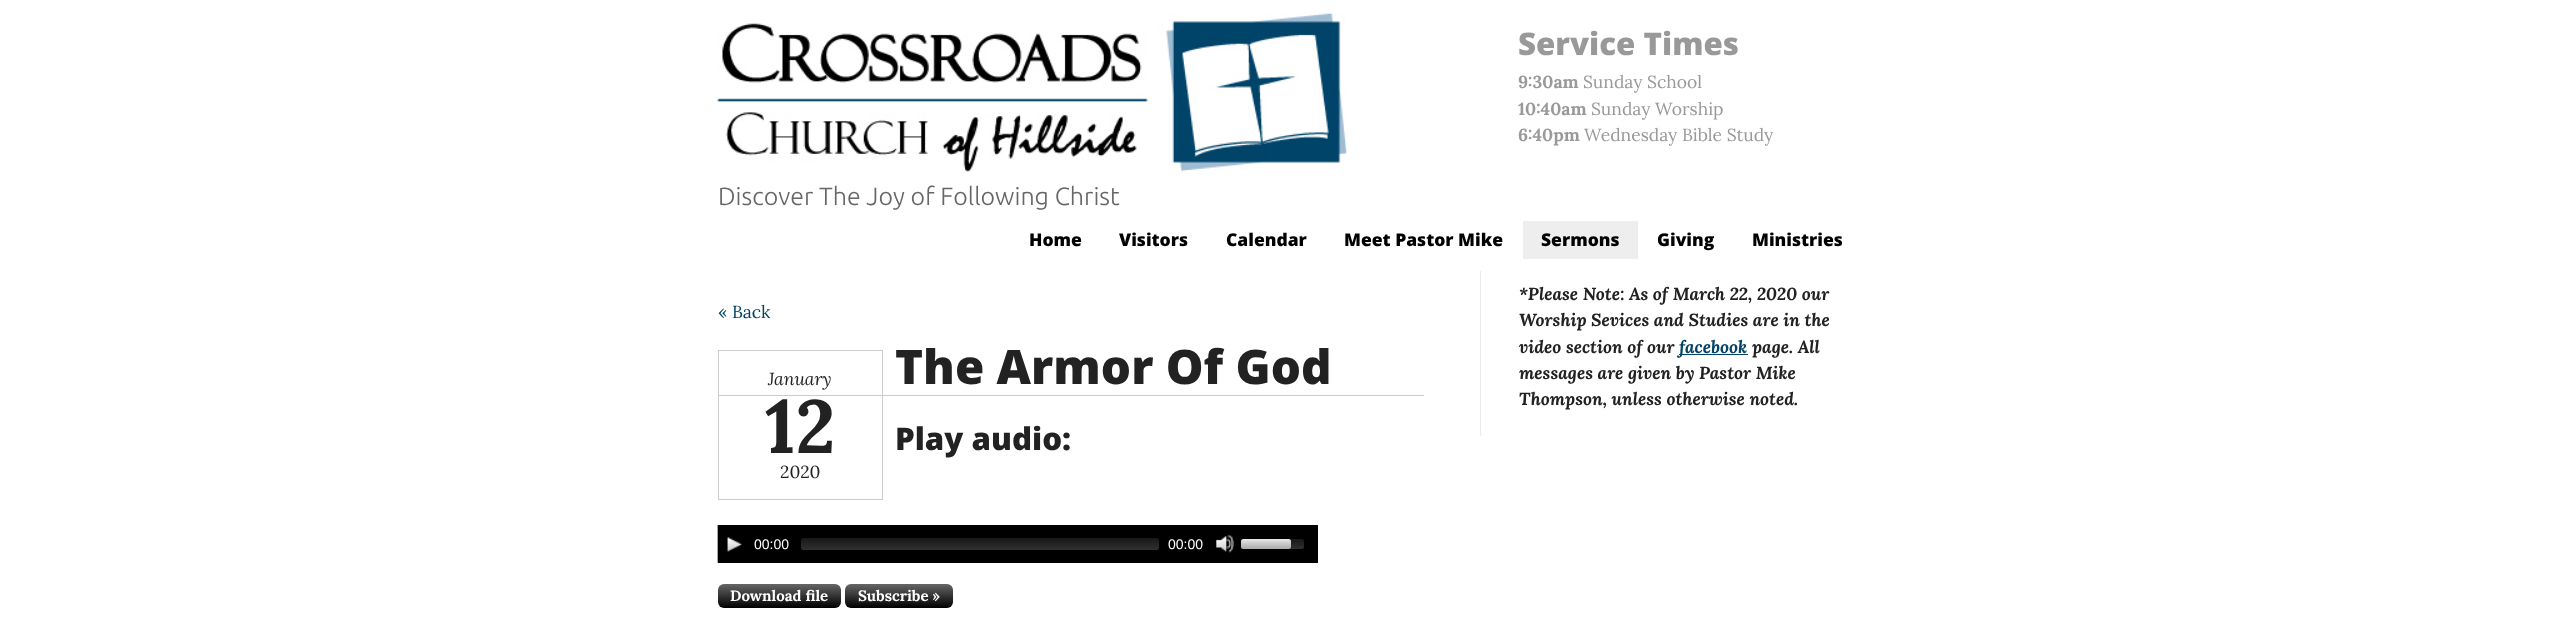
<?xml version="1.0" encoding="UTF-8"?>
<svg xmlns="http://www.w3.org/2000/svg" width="2560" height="622">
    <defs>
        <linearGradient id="g1" gradientUnits="userSpaceOnUse" x1="980" y1="538" x2="980" y2="550"><stop offset="0" stop-color="#181818"/><stop offset="1" stop-color="#303030"/></linearGradient>
        <linearGradient id="g2" gradientUnits="userSpaceOnUse" x1="1273" y1="539" x2="1273" y2="549"><stop offset="0" stop-color="#181818"/><stop offset="1" stop-color="#303030"/></linearGradient>
        <linearGradient id="g3" gradientUnits="userSpaceOnUse" x1="1266" y1="539" x2="1266" y2="549"><stop offset="0" stop-color="#FFFFFF" stop-opacity="0.9"/><stop offset="1" stop-color="#C8C8C8" stop-opacity="0.8"/></linearGradient>
        <linearGradient id="g4" gradientUnits="userSpaceOnUse" x1="779" y1="584" x2="779" y2="608"><stop offset="0" stop-color="#666666"/><stop offset="1" stop-color="#000000"/></linearGradient>
        <linearGradient id="g5" gradientUnits="userSpaceOnUse" x1="899" y1="584" x2="899" y2="608"><stop offset="0" stop-color="#666666"/><stop offset="1" stop-color="#000000"/></linearGradient>
    </defs>
    <rect width="100%" height="100%" fill="#FFFFFF"/>
    <text x="1518" y="55" font-family="Open Sans" font-size="31.25" font-weight="800" fill="#999999">Service Times</text>
    <text x="1518" y="88" font-family="Lora" font-size="17.5" font-weight="700" fill="#999999">9:30am</text>
    <text x="1583" y="88" font-family="Lora" font-size="17.5" fill="#999999">Sunday School</text>
    <text x="1518" y="115" font-family="Lora" font-size="17.5" font-weight="700" fill="#999999">10:40am</text>
    <text x="1591" y="115" font-family="Lora" font-size="17.5" fill="#999999">Sunday Worship</text>
    <text x="1518" y="141" font-family="Lora" font-size="17.5" font-weight="700" fill="#999999">6:40pm</text>
    <text x="1584" y="141" font-family="Lora" font-size="17.5" fill="#999999">Wednesday Bible Study</text>
    <image x="717" y="12" width="630" height="160" href="img_01.png"/>
    <text x="718" y="205" font-family="Ubuntu" font-size="25" font-weight="300" fill="#666666">Discover The Joy of Following Christ</text>
    <text x="1029" y="246" font-family="Open Sans" font-size="17.5" font-weight="800" fill="#000000">Home</text>
    <text x="1119" y="246" font-family="Open Sans" font-size="17.5" font-weight="800" fill="#000000">Visitors</text>
    <text x="1226" y="246" font-family="Open Sans" font-size="17.5" font-weight="800" fill="#000000">Calendar</text>
    <text x="1344" y="246" font-family="Open Sans" font-size="17.5" font-weight="800" fill="#000000">Meet Pastor Mike</text>
    <rect x="1523" y="221" width="115" height="38" fill="#EEEEEE"/>
    <text x="1541" y="246" font-family="Open Sans" font-size="17.5" font-weight="800" fill="#000000">Sermons</text>
    <text x="1657" y="246" font-family="Open Sans" font-size="17.5" font-weight="800" fill="#000000">Giving</text>
    <text x="1752" y="246" font-family="Open Sans" font-size="17.5" font-weight="800" fill="#000000">Ministries</text>
    <text x="718" y="318" font-family="Lora" font-size="17.5" fill="#034365">« Back</text>
    <rect x="718" y="395" width="706" height="1" fill="#CCCCCC"/>
    <text x="895" y="384" font-family="Open Sans" font-size="47.5" font-weight="800" fill="#222222">The Armor Of God</text>
    <rect x="718.5" y="350.5" width="164" height="149" fill="none" stroke="#CCCCCC"/>
    <text x="768" y="385" font-family="Lora" font-size="17.5" font-style="italic" fill="#222222">January</text>
    <text x="765" y="453" font-family="Lora" font-size="75" font-weight="700" fill="#222222">12</text>
    <text x="780" y="478" font-family="Lora" font-size="17.5" fill="#222222">2020</text>
    <text x="895" y="450" font-family="Open Sans" font-size="31.25" font-weight="800" fill="#222222">Play audio:</text>
    <rect x="718" y="525" width="600" height="38" fill="#000000"/>
    <image x="717" y="525" width="1" height="38" href="img_02.png"/>
    <image x="727" y="537" width="15" height="15" href="img_03.png"/>
    <text x="754" y="549" font-family="Liberation Sans" font-size="14" fill="#FFFFFF">00:00</text>
    <rect x="801" y="538" width="358" height="12" rx="2.5" fill="url(#g1)"/>
    <text x="1168" y="549" font-family="Liberation Sans" font-size="14" fill="#FFFFFF">00:00</text>
    <image x="1216" y="534" width="18" height="19" href="img_04.png"/>
    <rect x="1241" y="539" width="63" height="10" rx="2.5" fill="url(#g2)"/>
    <rect x="1241" y="539" width="50" height="10" rx="2.5" fill="url(#g3)"/>
    <rect x="718" y="584" width="123" height="24" rx="6" fill="url(#g4)"/>
    <text x="730" y="601" font-family="Lora" font-size="15" font-weight="700" fill="#FFFFFF">Download file</text>
    <rect x="845" y="584" width="108" height="24" rx="6" fill="url(#g5)"/>
    <text x="858" y="601" font-family="Lora" font-size="15" font-weight="700" fill="#FFFFFF">Subscribe »</text>
    <rect x="1480" y="271" width="1" height="165" fill="#EBEBEB"/>
    <text font-family="Lora" font-size="17.5" font-weight="700" font-style="italic" fill="#222222">
        <tspan x="1519" y="300">*Please Note: As of March 22, 2020 our</tspan>
        <tspan x="1519" y="326">Worship Sevices and Studies are in the</tspan>
        <tspan x="1519" y="353">video section of our</tspan>
    </text>
    <rect x="1679" y="354" width="69" height="1" fill="#034365"/>
    <text x="1679" y="353" font-family="Lora" font-size="17.5" font-weight="700" font-style="italic" fill="#034365">facebook</text>
    <text x="1752" y="353" font-family="Lora" font-size="17.5" font-weight="700" font-style="italic" fill="#222222">page. All</text>
    <text font-family="Lora" font-size="17.5" font-weight="700" font-style="italic" fill="#222222">
        <tspan x="1519" y="379">messages are given by Pastor Mike</tspan>
        <tspan x="1519" y="405">Thompson, unless otherwise noted.</tspan>
    </text>
</svg>
